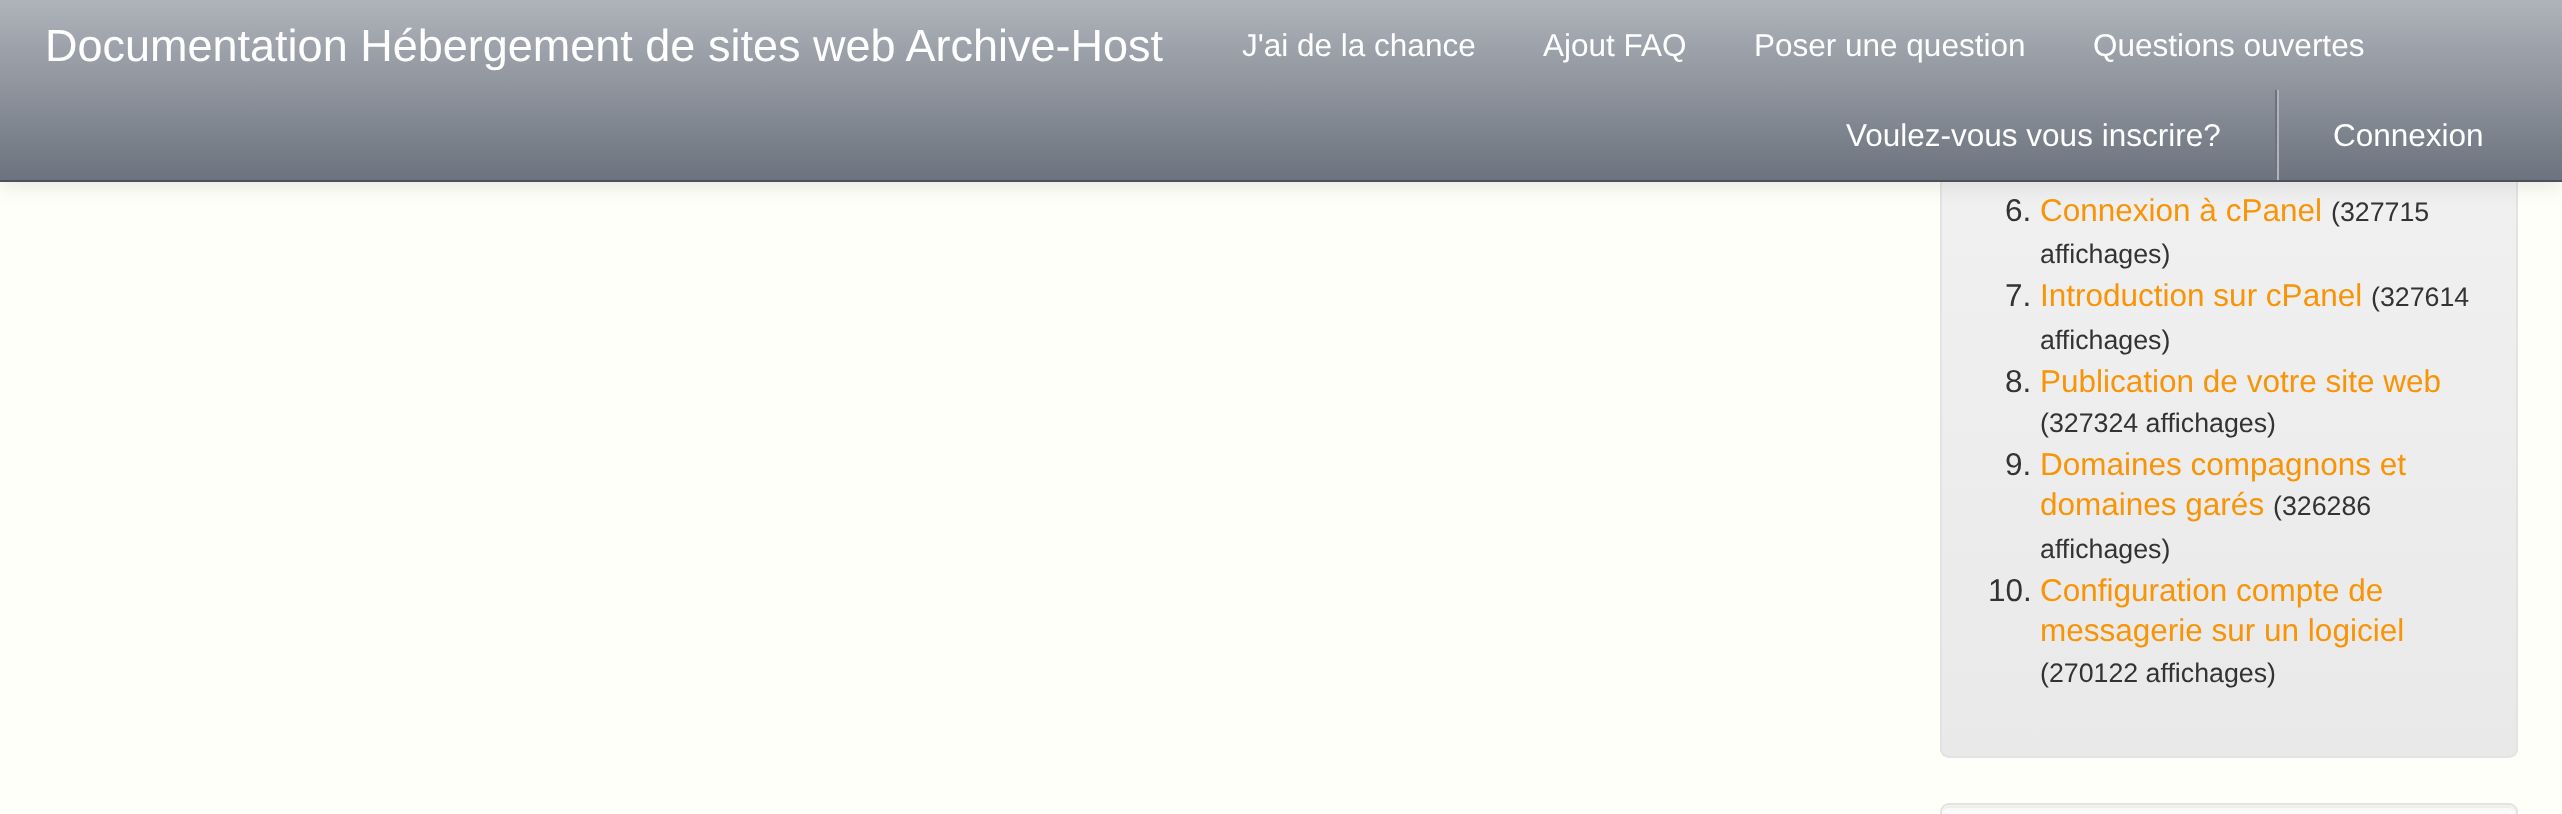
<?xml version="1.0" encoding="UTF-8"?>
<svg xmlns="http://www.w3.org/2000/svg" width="2562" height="814">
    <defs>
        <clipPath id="clip1"><rect x="1940" y="-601" width="578" height="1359" rx="9"/></clipPath>
        <linearGradient id="g1" gradientUnits="userSpaceOnUse" x1="2229" y1="-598" x2="2229" y2="756"><stop offset="0" stop-color="#FAFAFA"/><stop offset="1" stop-color="#E9E9E9"/></linearGradient>
        <filter id="blur1" x="-50%" y="-200%" width="200%" height="500%"><feGaussianBlur stdDeviation="11"/></filter>
        <linearGradient id="g2" gradientUnits="userSpaceOnUse" x1="1281" y1="0" x2="1281" y2="180"><stop offset="0" stop-color="#AFB3BA"/><stop offset="1" stop-color="#6C737E"/></linearGradient>
        <clipPath id="clip2"><rect x="1940" y="803" width="578" height="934" rx="9"/></clipPath>
        <linearGradient id="g3" gradientUnits="userSpaceOnUse" x1="2229" y1="806" x2="2229" y2="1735"><stop offset="0" stop-color="#FAFAFA"/><stop offset="1" stop-color="#E9E9E9"/></linearGradient>
    </defs>
    <rect width="100%" height="100%" fill="#FFFFF9"/>
    <g clip-path="url(#clip1)">
        <rect x="1940" y="182" width="578" height="574" fill="url(#g1)"/>
    </g>
    <rect x="1941" y="-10" width="576" height="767" rx="8" fill="none" stroke="#E3E3E3" stroke-width="2"/>
    <rect x="0" y="2" width="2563" height="183" fill="#000000" fill-opacity="0.1" filter="url(#blur1)"/>
    <rect x="0" y="0" width="2562" height="180" fill="url(#g2)"/>
    <rect x="0" y="180" width="2562" height="2" fill="#4C5159"/>
    <text x="45" y="61" font-family="Liberation Sans" font-size="45" fill="#FFFFFF">Documentation Hébergement de sites web Archive-Host</text>
    <text x="1242" y="56" font-family="Liberation Sans" font-size="31.5" fill="#FFFFFF">J'ai de la chance</text>
    <text x="1543" y="56" font-family="Liberation Sans" font-size="31.5" fill="#FFFFFF">Ajout FAQ</text>
    <text x="1754" y="56" font-family="Liberation Sans" font-size="31.5" fill="#FFFFFF">Poser une question</text>
    <text x="2093" y="56" font-family="Liberation Sans" font-size="31.5" fill="#FFFFFF">Questions ouvertes</text>
    <text x="1846" y="146" font-family="Liberation Sans" font-size="31.5" fill="#FFFFFF">Voulez-vous vous inscrire?</text>
    <rect x="2277" y="90" width="2" height="90" fill="#AFB3BA"/>
    <rect x="2275" y="90" width="2" height="90" fill="#6C737E"/>
    <text x="2333" y="146" font-family="Liberation Sans" font-size="31.5" fill="#FFFFFF">Connexion</text>
    <text x="2005" y="221" font-family="Liberation Sans" font-size="31.5" fill="#333333">6.</text>
    <text x="2040" y="221" font-family="Liberation Sans" font-size="31.5" fill="#F89406">Connexion à cPanel</text>
    <text x="2331" y="221" font-family="Liberation Sans" font-size="26.75" fill="#333333">(327715</text>
    <text x="2040" y="263" font-family="Liberation Sans" font-size="26.75" fill="#333333">affichages)</text>
    <text x="2005" y="306" font-family="Liberation Sans" font-size="31.5" fill="#333333">7.</text>
    <text x="2040" y="306" font-family="Liberation Sans" font-size="31.5" fill="#F89406">Introduction sur cPanel</text>
    <text x="2371" y="306" font-family="Liberation Sans" font-size="26.75" fill="#333333">(327614</text>
    <text x="2040" y="349" font-family="Liberation Sans" font-size="26.75" fill="#333333">affichages)</text>
    <text x="2005" y="392" font-family="Liberation Sans" font-size="31.5" fill="#333333">8.</text>
    <text x="2040" y="392" font-family="Liberation Sans" font-size="31.5" fill="#F89406">Publication de votre site web</text>
    <text x="2040" y="432" font-family="Liberation Sans" font-size="26.75" fill="#333333">(327324 affichages)</text>
    <text x="2005" y="475" font-family="Liberation Sans" font-size="31.5" fill="#333333">9.</text>
    <text font-family="Liberation Sans" font-size="31.5" fill="#F89406">
        <tspan x="2040" y="475">Domaines compagnons et</tspan>
        <tspan x="2040" y="515">domaines garés</tspan>
    </text>
    <text x="2273" y="515" font-family="Liberation Sans" font-size="26.75" fill="#333333">(326286</text>
    <text x="2040" y="558" font-family="Liberation Sans" font-size="26.75" fill="#333333">affichages)</text>
    <text x="1988" y="601" font-family="Liberation Sans" font-size="31.5" fill="#333333">10.</text>
    <text font-family="Liberation Sans" font-size="31.5" fill="#F89406">
        <tspan x="2040" y="601">Configuration compte de</tspan>
        <tspan x="2040" y="641">messagerie sur un logiciel</tspan>
    </text>
    <text x="2040" y="682" font-family="Liberation Sans" font-size="26.75" fill="#333333">(270122 affichages)</text>
    <rect x="1940" y="803" width="578" height="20" rx="9" fill="#F3F3F3"/>
    <g clip-path="url(#clip2)">
        <rect x="1940" y="806" width="578" height="8" fill="url(#g3)"/>
    </g>
    <path d="M 1948 808 H 2509 C 2512 808 2516 811 2516 814 C 2516 810 2514 806 2509 806 H 1949 C 1944 806 1942 810 1942 814 C 1942 811 1945 808 1948 808 Z" fill="#EEEEEE"/>
    <rect x="1941" y="804" width="576" height="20" rx="8" fill="none" stroke="#E3E3E3" stroke-width="2"/>
</svg>
